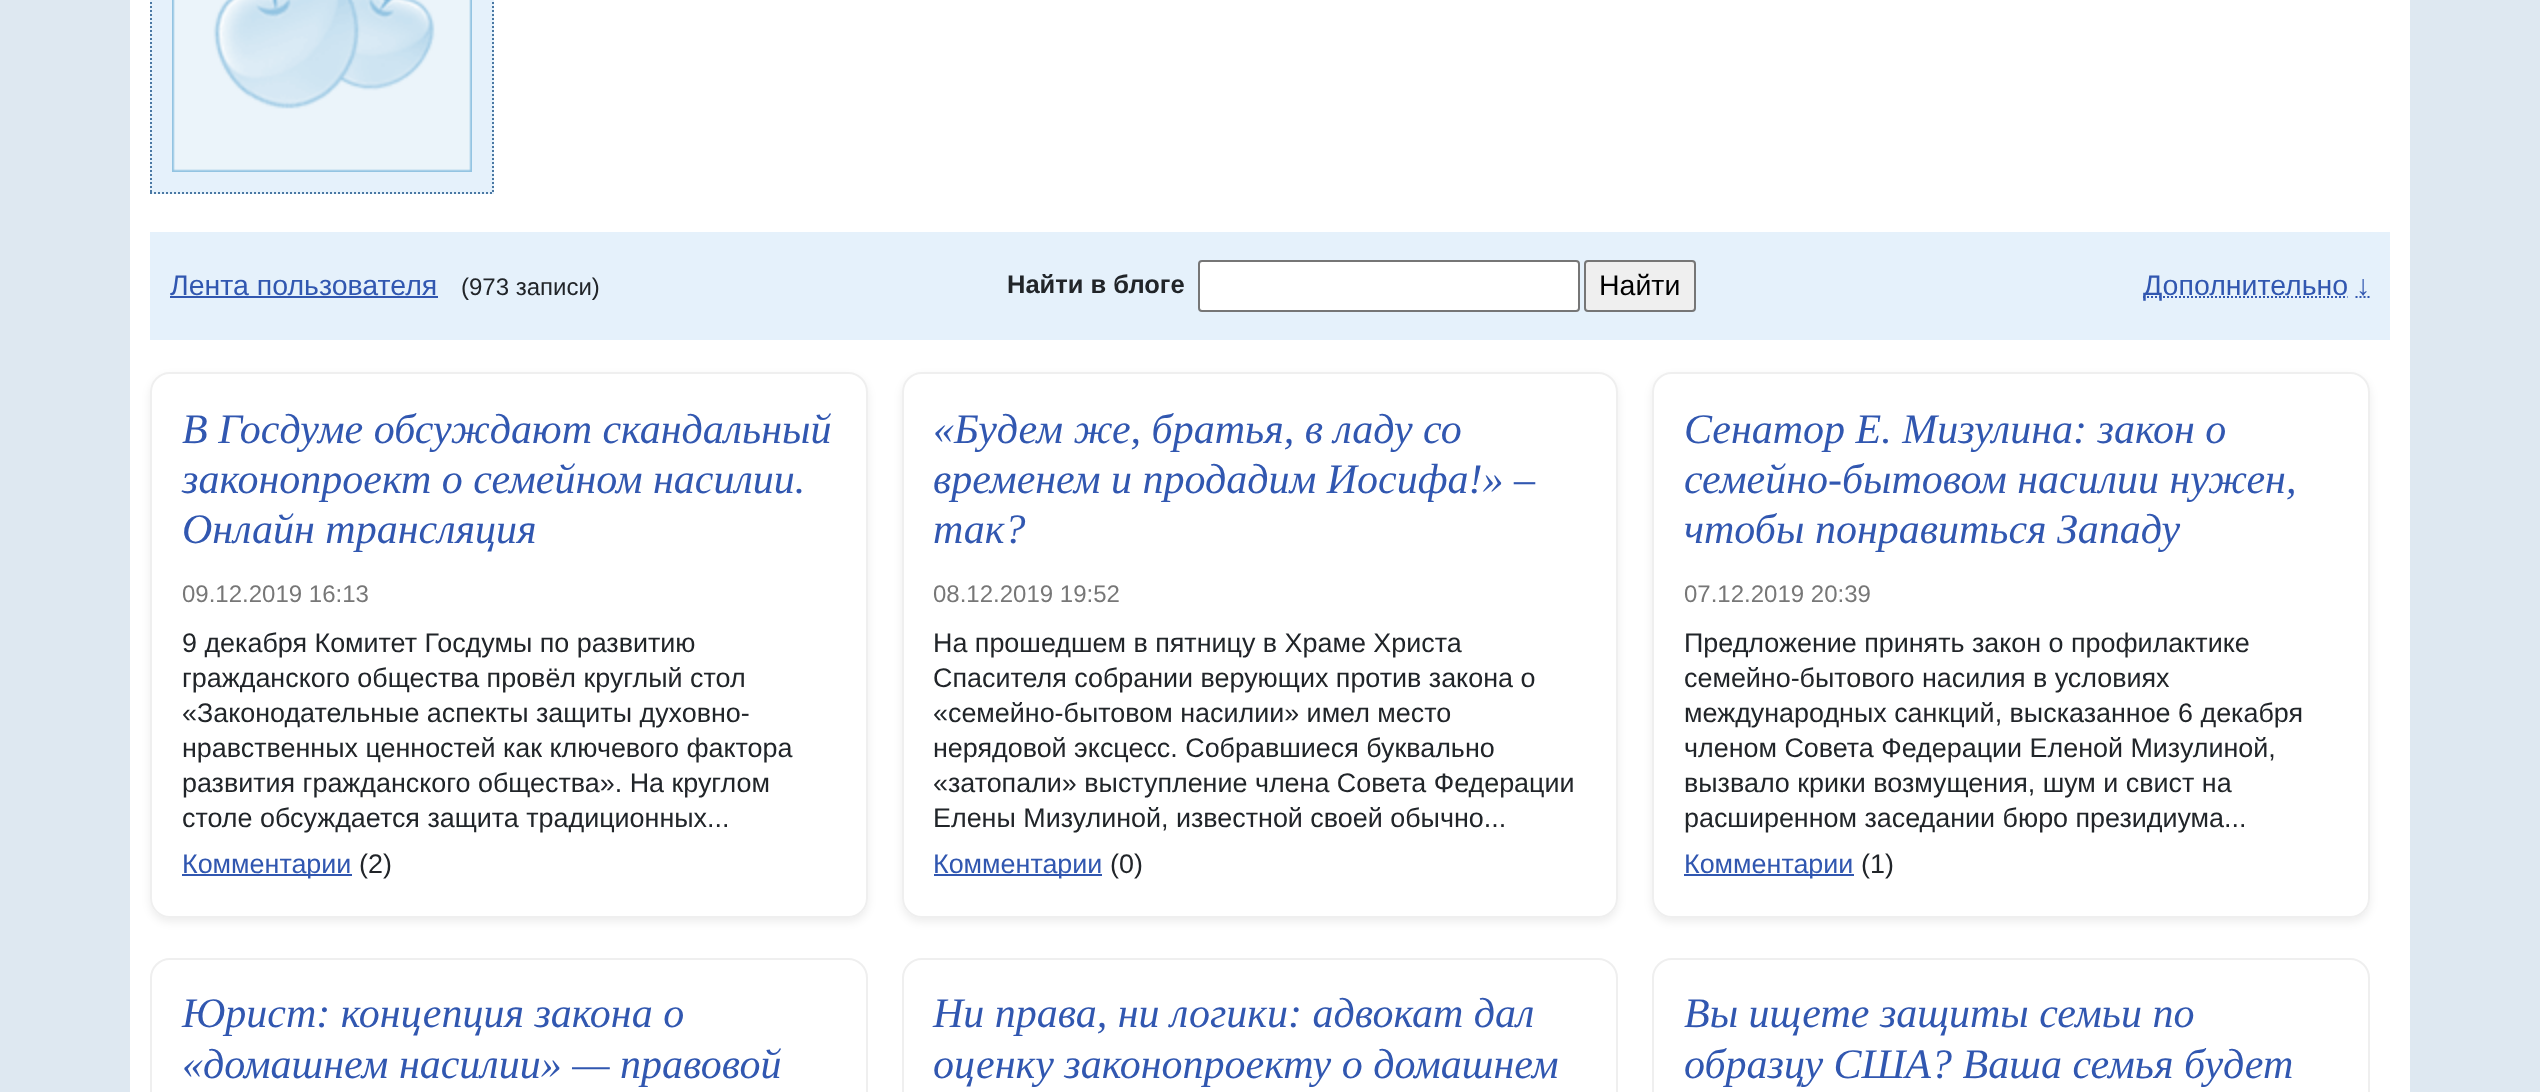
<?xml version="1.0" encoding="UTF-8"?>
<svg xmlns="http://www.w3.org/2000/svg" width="2540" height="1092">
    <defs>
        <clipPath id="clip1"><path d="M 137 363 H 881 V 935 H 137 Z M 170 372 H 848 C 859 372 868 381 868 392 V 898 C 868 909 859 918 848 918 H 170 C 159 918 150 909 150 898 V 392 C 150 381 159 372 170 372 Z" clip-rule="evenodd"/></clipPath>
        <filter id="blur1" x="-50%" y="-200%" width="200%" height="500%"><feGaussianBlur stdDeviation="4"/></filter>
        <clipPath id="clip2"><path d="M 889 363 H 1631 V 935 H 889 Z M 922 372 H 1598 C 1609 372 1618 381 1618 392 V 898 C 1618 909 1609 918 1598 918 H 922 C 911 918 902 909 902 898 V 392 C 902 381 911 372 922 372 Z" clip-rule="evenodd"/></clipPath>
        <clipPath id="clip3"><path d="M 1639 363 H 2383 V 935 H 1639 Z M 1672 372 H 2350 C 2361 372 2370 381 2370 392 V 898 C 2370 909 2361 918 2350 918 H 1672 C 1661 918 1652 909 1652 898 V 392 C 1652 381 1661 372 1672 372 Z" clip-rule="evenodd"/></clipPath>
    </defs>
    <rect width="100%" height="100%" fill="#DEE8F1"/>
    <rect x="130" y="0" width="2280" height="1092" fill="#FFFFFF"/>
    <rect x="150" y="0" width="344" height="194" fill="#E5F1FB"/>
    <path d="M 493 -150 V 194" fill="none" stroke="#4A78A3" stroke-width="2" stroke-dasharray="2 2"/>
    <path d="M 150 193 H 494" fill="none" stroke="#4A78A3" stroke-width="2" stroke-dasharray="2 2"/>
    <path d="M 151 -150 V 194" fill="none" stroke="#4A78A3" stroke-width="2" stroke-dasharray="2 2"/>
    <image x="172" y="0" width="300" height="172" href="img_01.png"/>
    <rect x="150" y="232" width="2240" height="108" fill="#E5F1FB"/>
    <text x="170" y="295" font-family="Liberation Sans" font-size="28.5" fill="#3157B0">Лента пользователя</text>
    <rect x="170" y="296" width="268" height="2" fill="#3157B0"/>
    <text x="461" y="295" font-family="Liberation Sans" font-size="24" fill="#212529">(973 записи)</text>
    <text x="1007" y="293" font-family="Liberation Sans" font-size="25.5" font-weight="700" fill="#212529">Найти в блоге</text>
    <rect x="1199" y="261" width="380" height="50" rx="3" fill="#FFFFFF" stroke="#767676" stroke-width="2"/>
    <rect x="1585" y="261" width="110" height="50" rx="3" fill="#EFEFEF" stroke="#767676" stroke-width="2"/>
    <text x="1599" y="295" font-family="Liberation Sans" font-size="28.5" fill="#000000">Найти</text>
    <path d="M 2143 297 H 2347.5" fill="none" stroke="#3157B0" stroke-width="2" stroke-dasharray="2 2"/>
    <text x="2143" y="295" font-family="Liberation Sans" font-size="28.5" fill="#3157B0">Дополнительно ↓</text>
    <path d="M 2355.5 297 H 2370" fill="none" stroke="#3157B0" stroke-width="2" stroke-dasharray="2 2"/>
    <g clip-path="url(#clip1)">
        <rect x="150" y="376" width="718" height="546" rx="20" fill="#000000" fill-opacity="0.07" filter="url(#blur1)"/>
    </g>
    <rect x="151" y="373" width="716" height="544" rx="19" fill="none" stroke="#EFEFEF" stroke-width="2"/>
    <text font-family="Liberation Serif" font-size="42" font-style="italic" fill="#3157B0">
        <tspan x="182" y="443">В Госдуме обсуждают скандальный</tspan>
        <tspan x="182" y="493">законопроект о семейном насилии.</tspan>
        <tspan x="182" y="543">Онлайн трансляция</tspan>
    </text>
    <text x="182" y="602" font-family="Liberation Sans" font-size="24" fill="#777777">09.12.2019 16:13</text>
    <text font-family="Liberation Sans" font-size="26.9" fill="#212529">
        <tspan x="182" y="652">9 декабря Комитет Госдумы по развитию</tspan>
        <tspan x="182" y="687">гражданского общества провёл круглый стол</tspan>
        <tspan x="182" y="722">«Законодательные аспекты защиты духовно-</tspan>
        <tspan x="182" y="757">нравственных ценностей как ключевого фактора</tspan>
        <tspan x="182" y="792">развития гражданского общества». На круглом</tspan>
        <tspan x="182" y="827">столе обсуждается защита традиционных...</tspan>
    </text>
    <rect x="182" y="874" width="170" height="2" fill="#3157B0"/>
    <text x="182" y="873" font-family="Liberation Sans" font-size="26.9" fill="#3157B0">Комментарии</text>
    <text x="359" y="873" font-family="Liberation Sans" font-size="26.9" fill="#212529">(2)</text>
    <g clip-path="url(#clip2)">
        <rect x="902" y="376" width="716" height="546" rx="20" fill="#000000" fill-opacity="0.07" filter="url(#blur1)"/>
    </g>
    <rect x="903" y="373" width="714" height="544" rx="19" fill="none" stroke="#EFEFEF" stroke-width="2"/>
    <text font-family="Liberation Serif" font-size="42" font-style="italic" fill="#3157B0">
        <tspan x="933" y="443">«Будем же, братья, в ладу со</tspan>
        <tspan x="933" y="493">временем и продадим Иосифа!» –</tspan>
        <tspan x="933" y="543">так?</tspan>
    </text>
    <text x="933" y="602" font-family="Liberation Sans" font-size="24" fill="#777777">08.12.2019 19:52</text>
    <text font-family="Liberation Sans" font-size="26.9" fill="#212529">
        <tspan x="933" y="652">На прошедшем в пятницу в Храме Христа</tspan>
        <tspan x="933" y="687">Спасителя собрании верующих против закона о</tspan>
        <tspan x="933" y="722">«семейно-бытовом насилии» имел место</tspan>
        <tspan x="933" y="757">нерядовой эксцесс. Собравшиеся буквально</tspan>
        <tspan x="933" y="792">«затопали» выступление члена Совета Федерации</tspan>
        <tspan x="933" y="827">Елены Мизулиной, известной своей обычно...</tspan>
    </text>
    <rect x="934" y="874" width="168" height="2" fill="#3157B0"/>
    <text x="933" y="873" font-family="Liberation Sans" font-size="26.9" fill="#3157B0">Комментарии</text>
    <text x="1110" y="873" font-family="Liberation Sans" font-size="26.9" fill="#212529">(0)</text>
    <g clip-path="url(#clip3)">
        <rect x="1652" y="376" width="718" height="546" rx="20" fill="#000000" fill-opacity="0.07" filter="url(#blur1)"/>
    </g>
    <rect x="1653" y="373" width="716" height="544" rx="19" fill="none" stroke="#EFEFEF" stroke-width="2"/>
    <text font-family="Liberation Serif" font-size="42" font-style="italic" fill="#3157B0">
        <tspan x="1684" y="443">Сенатор Е. Мизулина: закон о</tspan>
        <tspan x="1684" y="493">семейно-бытовом насилии нужен,</tspan>
        <tspan x="1684" y="543">чтобы понравиться Западу</tspan>
    </text>
    <text x="1684" y="602" font-family="Liberation Sans" font-size="24" fill="#777777">07.12.2019 20:39</text>
    <text font-family="Liberation Sans" font-size="26.9" fill="#212529">
        <tspan x="1684" y="652">Предложение принять закон о профилактике</tspan>
        <tspan x="1684" y="687">семейно-бытового насилия в условиях</tspan>
        <tspan x="1684" y="722">международных санкций, высказанное 6 декабря</tspan>
        <tspan x="1684" y="757">членом Совета Федерации Еленой Мизулиной,</tspan>
        <tspan x="1684" y="792">вызвало крики возмущения, шум и свист на</tspan>
        <tspan x="1684" y="827">расширенном заседании бюро президиума...</tspan>
    </text>
    <rect x="1684" y="874" width="170" height="2" fill="#3157B0"/>
    <text x="1684" y="873" font-family="Liberation Sans" font-size="26.9" fill="#3157B0">Комментарии</text>
    <text x="1861" y="873" font-family="Liberation Sans" font-size="26.9" fill="#212529">(1)</text>
    <rect x="151" y="959" width="716" height="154" rx="19" fill="none" stroke="#EFEFEF" stroke-width="2"/>
    <text font-family="Liberation Serif" font-size="42" font-style="italic" fill="#3157B0">
        <tspan x="182" y="1027">Юрист: концепция закона о</tspan>
        <tspan x="182" y="1078">«домашнем насилии» — правовой</tspan>
    </text>
    <rect x="903" y="959" width="714" height="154" rx="19" fill="none" stroke="#EFEFEF" stroke-width="2"/>
    <text font-family="Liberation Serif" font-size="42" font-style="italic" fill="#3157B0">
        <tspan x="933" y="1027">Ни права, ни логики: адвокат дал</tspan>
        <tspan x="933" y="1078">оценку законопроекту о домашнем</tspan>
    </text>
    <rect x="1653" y="959" width="716" height="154" rx="19" fill="none" stroke="#EFEFEF" stroke-width="2"/>
    <text font-family="Liberation Serif" font-size="42" font-style="italic" fill="#3157B0">
        <tspan x="1684" y="1027">Вы ищете защиты семьи по</tspan>
        <tspan x="1684" y="1078">образцу США? Ваша семья будет</tspan>
    </text>
</svg>
